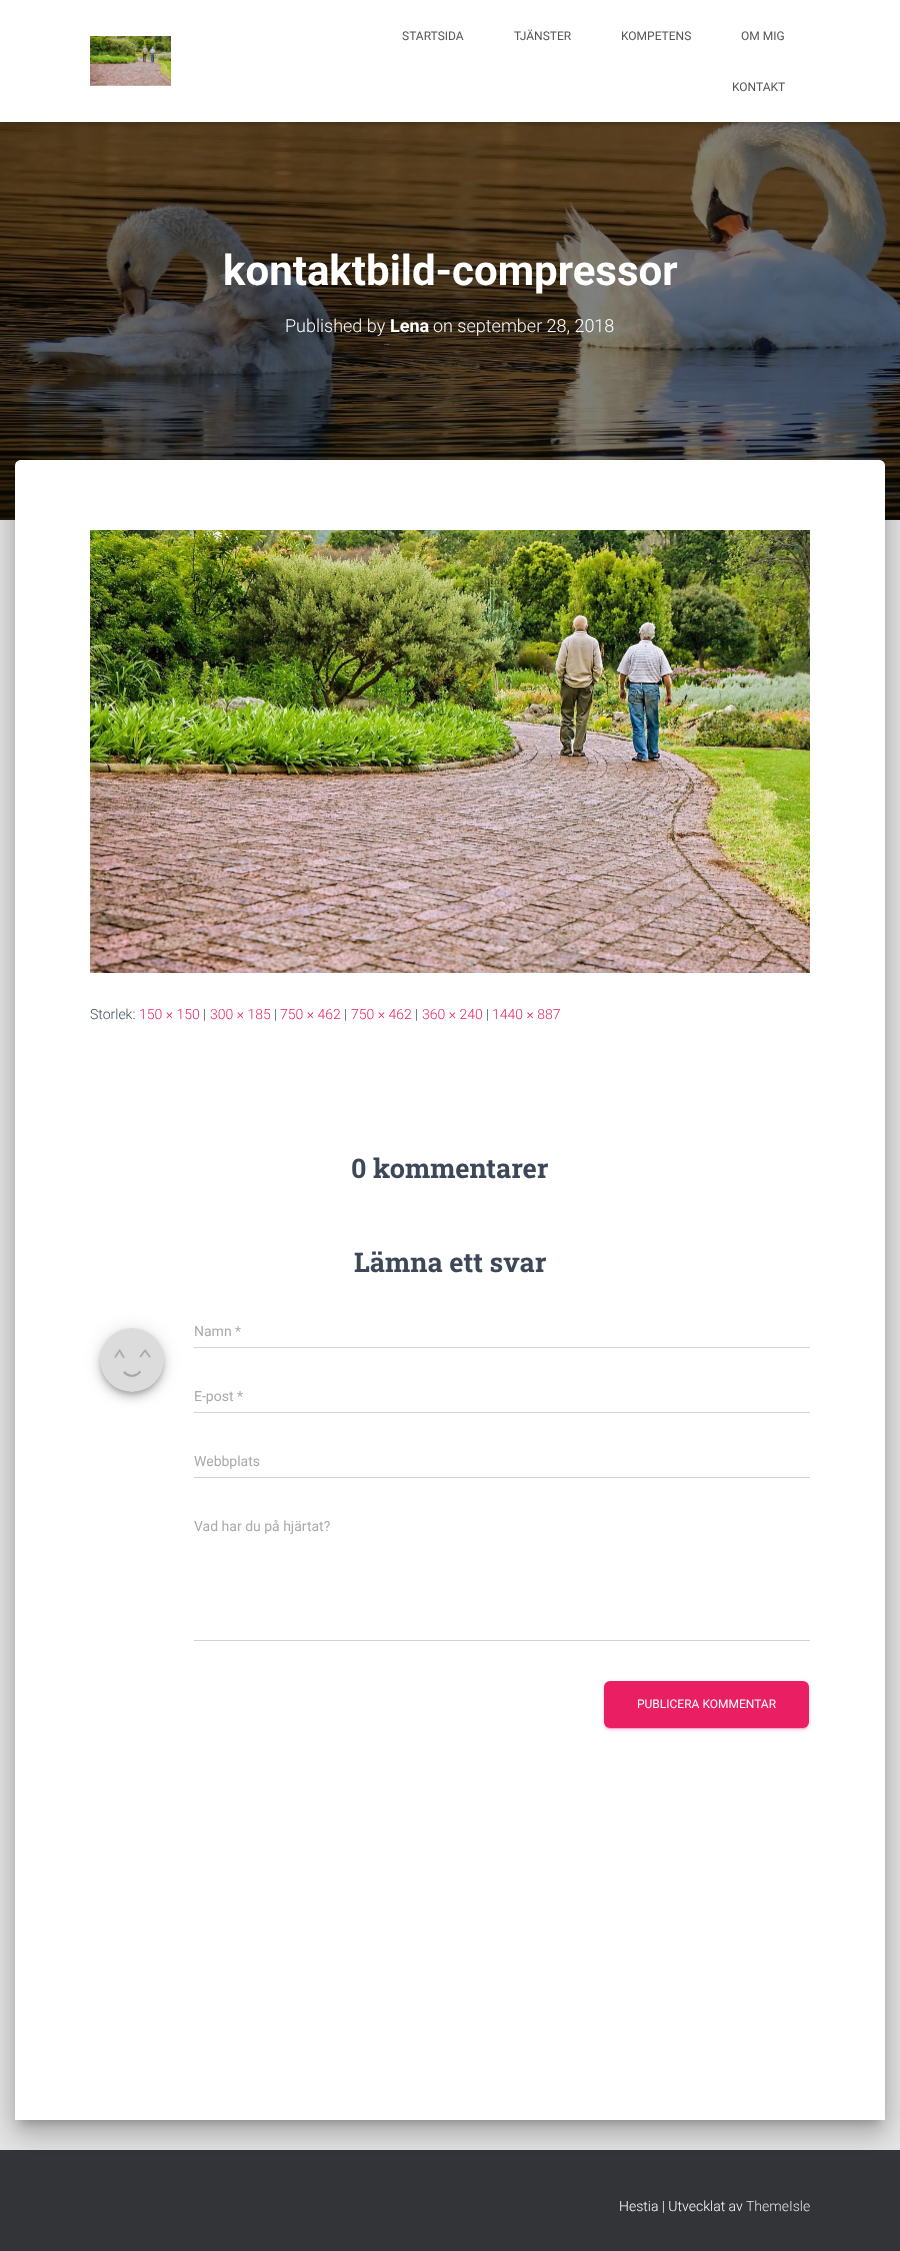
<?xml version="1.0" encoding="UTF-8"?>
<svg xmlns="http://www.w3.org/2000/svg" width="900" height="2251">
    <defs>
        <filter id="blur1" x="-50%" y="-200%" width="200%" height="500%"><feGaussianBlur stdDeviation="2.5"/></filter>
        <filter id="blur2" x="-50%" y="-200%" width="200%" height="500%"><feGaussianBlur stdDeviation="5"/></filter>
        <filter id="blur3" x="-50%" y="-200%" width="200%" height="500%"><feGaussianBlur stdDeviation="15"/></filter>
        <filter id="blur4" x="-50%" y="-200%" width="200%" height="500%"><feGaussianBlur stdDeviation="12"/></filter>
        <filter id="blur5" x="-50%" y="-200%" width="200%" height="500%"><feGaussianBlur stdDeviation="9"/></filter>
        <filter id="blur6" x="-50%" y="-200%" width="200%" height="500%"><feGaussianBlur stdDeviation="0.5"/></filter>
        <filter id="blur7" x="-50%" y="-200%" width="200%" height="500%"><feGaussianBlur stdDeviation="1"/></filter>
    </defs>
    <rect width="100%" height="100%" fill="#E5E5E5"/>
    <image x="0" y="122" width="900" height="398" href="img_02.png"/>
    <rect x="2" y="6" width="896" height="118" fill="#000000" fill-opacity="0.1" filter="url(#blur1)"/>
    <rect x="0" y="1" width="900" height="122" fill="#000000" fill-opacity="0.12" filter="url(#blur2)"/>
    <rect x="6" y="7" width="888" height="110" fill="#000000" fill-opacity="0.42" filter="url(#blur2)"/>
    <rect x="0" y="0" width="900" height="122" fill="#FFFFFF"/>
    <image x="90" y="36" width="81" height="50" href="img_01.png"/>
    <text x="402" y="40" font-family="Roboto" font-size="12" fill="#555555">STARTSIDA</text>
    <text x="514" y="40" font-family="Roboto" font-size="12" fill="#555555">TJÄNSTER</text>
    <text x="621" y="40" font-family="Roboto" font-size="12" fill="#555555">KOMPETENS</text>
    <text x="741" y="40" font-family="Roboto" font-size="12" fill="#555555">OM MIG</text>
    <text x="732" y="91" font-family="Roboto" font-size="12" fill="#555555">KONTAKT</text>
    <text x="223" y="285" font-family="Roboto" font-size="42" font-weight="700" fill="#FFFFFF">kontaktbild-compressor</text>
    <text x="285" y="332" font-family="Roboto" font-size="18" font-weight="300" fill="#FFFFFF">Published by</text>
    <text x="390" y="332" font-family="Roboto" font-size="18" font-weight="700" fill="#FFFFFF">Lena</text>
    <text x="433" y="332" font-family="Roboto" font-size="18" font-weight="300" fill="#FFFFFF">on september 28, 2018</text>
    <rect x="20" y="473" width="860" height="1650" rx="1" fill="#000000" fill-opacity="0.2" filter="url(#blur2)"/>
    <rect x="0" y="2150" width="900" height="101" fill="#323437"/>
    <rect x="10" y="461" width="880" height="1670" rx="11" fill="#000000" fill-opacity="0.12" filter="url(#blur3)"/>
    <rect x="13" y="474" width="874" height="1664" rx="8" fill="#000000" fill-opacity="0.14" filter="url(#blur4)"/>
    <path d="M 21 460 H 879 C 882.5 460 885 462.5 885 466 V 2120 H 15 V 466 C 15 462.5 17.5 460 21 460 Z" fill="#FFFFFF"/>
    <image x="90" y="530" width="720" height="443" href="img_03.png"/>
    <text x="90" y="1019" font-family="Roboto" font-size="14" font-weight="300" fill="#3C4858">Storlek:</text>
    <text x="139" y="1019" font-family="Roboto" font-size="14" font-weight="300" fill="#E91E63">150 × 150</text>
    <text x="203" y="1019" font-family="Roboto" font-size="14" font-weight="300" fill="#3C4858">|</text>
    <text x="210" y="1019" font-family="Roboto" font-size="14" font-weight="300" fill="#E91E63">300 × 185</text>
    <text x="274" y="1019" font-family="Roboto" font-size="14" font-weight="300" fill="#3C4858">|</text>
    <text x="280" y="1019" font-family="Roboto" font-size="14" font-weight="300" fill="#E91E63">750 × 462</text>
    <text x="344" y="1019" font-family="Roboto" font-size="14" font-weight="300" fill="#3C4858">|</text>
    <text x="351" y="1019" font-family="Roboto" font-size="14" font-weight="300" fill="#E91E63">750 × 462</text>
    <text x="415" y="1019" font-family="Roboto" font-size="14" font-weight="300" fill="#3C4858">|</text>
    <text x="422" y="1019" font-family="Roboto" font-size="14" font-weight="300" fill="#E91E63">360 × 240</text>
    <text x="486" y="1019" font-family="Roboto" font-size="14" font-weight="300" fill="#3C4858">|</text>
    <text x="492" y="1019" font-family="Roboto" font-size="14" font-weight="300" fill="#E91E63">1440 × 887</text>
    <text x="351" y="1178" font-family="Roboto Slab" font-size="27" font-weight="700" fill="#3C4858">0 kommentarer</text>
    <text x="354" y="1272" font-family="Roboto Slab" font-size="27" font-weight="700" fill="#3C4858">Lämna ett svar</text>
    <rect x="101" y="1332" width="62" height="62" rx="31" fill="#000000" fill-opacity="0.2" filter="url(#blur1)"/>
    <rect x="100" y="1329" width="64" height="64" rx="32" fill="#000000" fill-opacity="0.12" filter="url(#blur5)"/>
    <rect x="100" y="1334" width="64" height="64" rx="32" fill="#000000" fill-opacity="0.14" filter="url(#blur2)"/>
    <image x="100" y="1328" width="64" height="64" href="img_04.png"/>
    <text x="194" y="1336" font-family="Roboto" font-size="14" fill="#AAAAAA">Namn *</text>
    <rect x="194" y="1347" width="616" height="1" fill="#D2D2D2"/>
    <text x="194" y="1401" font-family="Roboto" font-size="14" fill="#AAAAAA">E-post *</text>
    <rect x="194" y="1412" width="616" height="1" fill="#D2D2D2"/>
    <text x="194" y="1466" font-family="Roboto" font-size="14" fill="#AAAAAA">Webbplats</text>
    <rect x="194" y="1477" width="616" height="1" fill="#D2D2D2"/>
    <text x="194" y="1531" font-family="Roboto" font-size="14" fill="#AAAAAA">Vad har du på hjärtat?</text>
    <rect x="194" y="1640" width="616" height="1" fill="#D2D2D2"/>
    <rect x="604" y="1682" width="205" height="47" rx="6" fill="#E91E63" fill-opacity="0.12" filter="url(#blur1)"/>
    <rect x="606" y="1686" width="201" height="43" rx="4" fill="#E91E63" fill-opacity="0.2" filter="url(#blur6)"/>
    <rect x="604" y="1683" width="205" height="47" rx="6" fill="#E91E63" fill-opacity="0.14" filter="url(#blur7)"/>
    <rect x="604" y="1681" width="205" height="47" rx="6" fill="#E91E63"/>
    <text x="637" y="1708" font-family="Roboto" font-size="12" fill="#FFFFFF">PUBLICERA KOMMENTAR</text>
    <text x="619" y="2211" font-family="Roboto" font-size="14" font-weight="300" fill="#FFFFFF">Hestia | Utvecklat av</text>
    <text x="746" y="2211" font-family="Roboto" font-size="14" font-weight="300" fill="#E2E3E3">ThemeIsle</text>
</svg>
